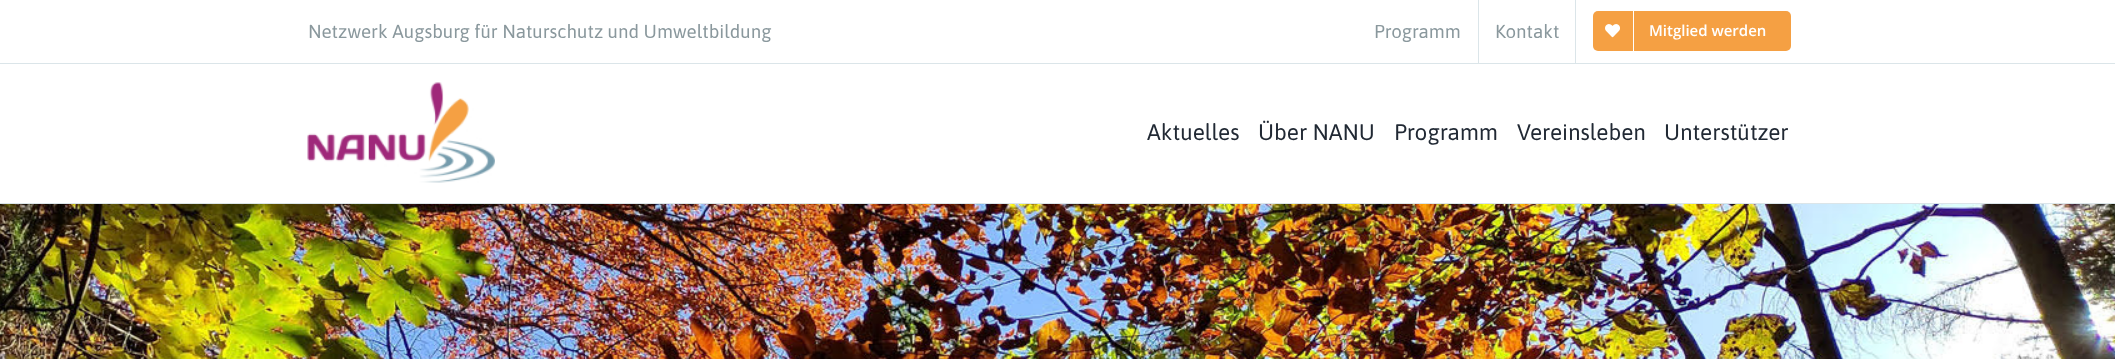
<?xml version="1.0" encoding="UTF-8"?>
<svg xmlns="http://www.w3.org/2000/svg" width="2115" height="359">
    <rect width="100%" height="100%" fill="#FFFFFF"/>
    <rect x="0" y="63" width="2115" height="1" fill="#DBE5E9"/>
    <text x="308" y="38" font-family="Asap" font-size="18.75" fill="#8A989D">Netzwerk Augsburg für Naturschutz und Umweltbildung</text>
    <text x="1374" y="38" font-family="Asap" font-size="18.75" fill="#8A989D">Programm</text>
    <rect x="1478" y="0" width="1" height="63" fill="#DBE5E9"/>
    <text x="1495" y="38" font-family="Asap" font-size="18.75" fill="#8A989D">Kontakt</text>
    <rect x="1575" y="0" width="1" height="63" fill="#DBE5E9"/>
    <rect x="1593" y="11" width="198" height="40" rx="5" fill="#F5A043"/>
    <rect x="1633" y="11" width="1" height="40" fill="#FFFFFF"/>
    <image x="1605" y="24" width="15" height="14" href="img_01.png"/>
    <text x="1649" y="36" font-family="Open Sans" font-size="15" font-weight="600" fill="#FFFFFF">Mitglied werden</text>
    <rect x="0" y="203" width="2115" height="1" fill="#DBE5E9"/>
    <image x="307" y="82" width="188" height="101" href="img_02.png"/>
    <text x="1147" y="140" font-family="Asap" font-size="22.5" fill="#212934">Aktuelles</text>
    <text x="1258" y="140" font-family="Asap" font-size="22.5" fill="#212934">Über NANU</text>
    <text x="1394" y="140" font-family="Asap" font-size="22.5" fill="#212934">Programm</text>
    <text x="1517" y="140" font-family="Asap" font-size="22.5" fill="#212934">Vereinsleben</text>
    <text x="1664" y="140" font-family="Asap" font-size="22.5" fill="#212934">Unterstützer</text>
    <image x="0" y="204" width="2115" height="155" href="img_03.png"/>
</svg>
